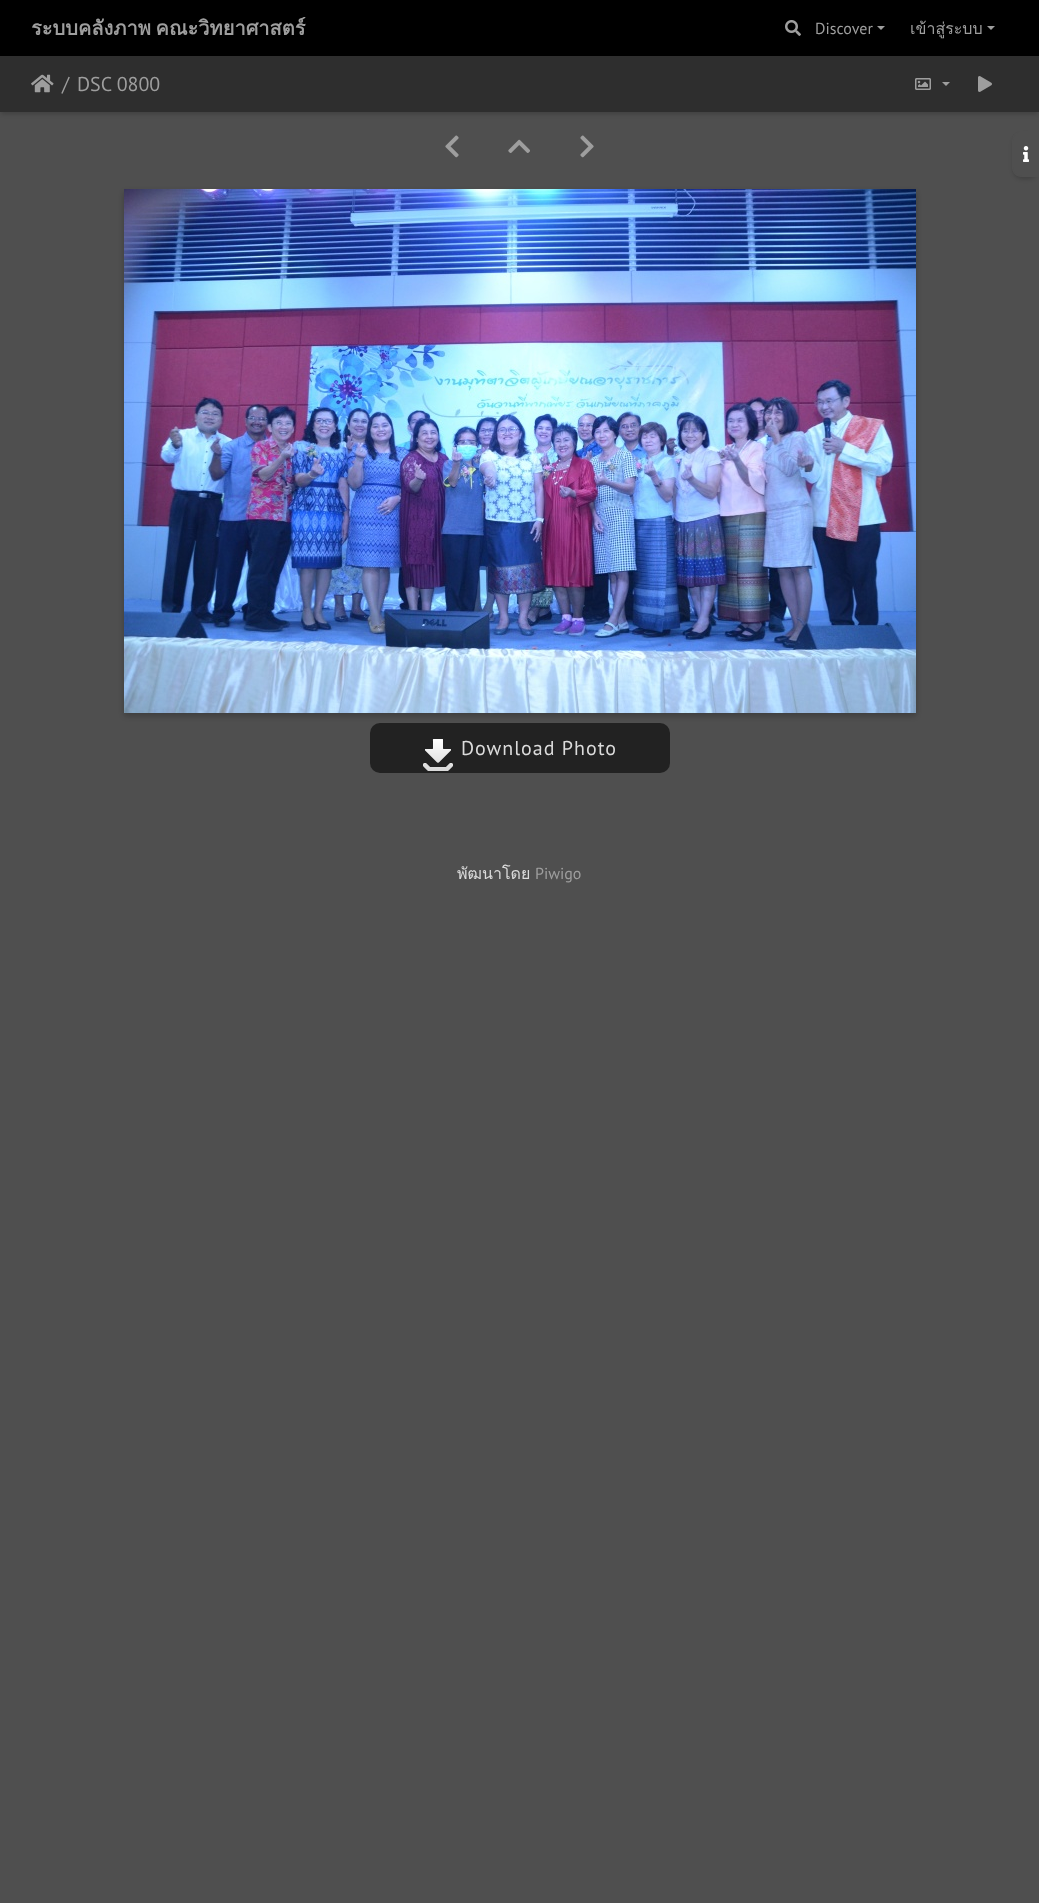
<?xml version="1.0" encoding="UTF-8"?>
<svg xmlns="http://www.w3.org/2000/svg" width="1039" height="1903">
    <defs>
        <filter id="blur1" x="-50%" y="-200%" width="200%" height="500%"><feGaussianBlur stdDeviation="2.5"/></filter>
        <filter id="blur2" x="-50%" y="-200%" width="200%" height="500%"><feGaussianBlur stdDeviation="3"/></filter>
    </defs>
    <rect width="100%" height="100%" fill="#4F4F4F"/>
    <rect x="1" y="60" width="1037" height="54" fill="#000000" fill-opacity="0.2" filter="url(#blur1)"/>
    <rect x="0" y="0" width="1039" height="56" fill="#000000"/>
    <text x="31" y="35" word-spacing="-2" font-family="Loma" font-size="20" font-weight="700" fill="#9E9E9E">ระบบคลังภาพ คณะวิทยาศาสตร์</text>
    <image x="785" y="20" width="16" height="16" href="img_01.png"/>
    <text x="815" y="34" font-family="PT Sans" font-size="16" fill="#9E9E9E">Discover</text>
    <path d="M 877 26 H 885 L 881 30 Z" fill="#9E9E9E"/>
    <text x="910" y="34" font-family="Loma" font-size="16" fill="#9E9E9E">เข้าสู่ระบบ</text>
    <path d="M 987 26 H 995 L 991 30 Z" fill="#9E9E9E"/>
    <rect x="0" y="56" width="1039" height="56" fill="#2E2E2E"/>
    <image x="31" y="74" width="23" height="19" href="img_02.png"/>
    <text x="62" y="91" font-family="PT Sans" font-size="20" fill="#9E9E9E">/</text>
    <text x="77" y="91" font-family="PT Sans" font-size="20" fill="#9E9E9E">DSC 0800</text>
    <image x="915" y="78" width="16" height="12" href="img_03.png"/>
    <path d="M 942 82 H 950 L 946 86 Z" fill="#9E9E9E"/>
    <image x="978" y="76" width="14" height="16" href="img_04.png"/>
    <image x="445" y="135" width="14" height="23" href="img_05.png"/>
    <image x="508" y="139" width="22" height="14" href="img_06.png"/>
    <image x="580" y="135" width="14" height="23" href="img_07.png"/>
    <rect x="1013" y="135" width="25" height="44" rx="9" fill="#000000" fill-opacity="0.2" filter="url(#blur1)"/>
    <path d="M 1022 131 H 1039 V 177 H 1022 C 1016.5 177 1012 172.5 1012 167 V 141 C 1012 135.5 1016.5 131 1022 131 Z" fill="#4F4F4F"/>
    <path d="M 1022 131 H 1039 V 177 H 1022 C 1016 177 1012 173 1012 167 V 141 C 1012 135 1016 131 1022 131 Z M 1022 132 H 1039 V 176 H 1022 C 1017 176 1013 172 1013 167 V 141 C 1013 136 1017 132 1022 132 Z" fill="#4F4F4F" fill-rule="evenodd"/>
    <image x="1023" y="146" width="6" height="16" href="img_08.png"/>
    <rect x="370" y="723" width="300" height="50" rx="10" fill="#222222"/>
    <rect x="124" y="192" width="792" height="524" fill="#000000" fill-opacity="0.23" filter="url(#blur2)"/>
    <image x="124" y="189" width="792" height="524" href="img_09.png"/>
    <image x="423" y="739" width="30" height="32" href="img_10.png"/>
    <text x="461" y="755" font-family="PT Sans" font-size="20" letter-spacing="1" fill="#DBDBDB">Download Photo</text>
    <text x="457" y="879" font-family="Loma" font-size="16" fill="#DBDBDB">พัฒนาโดย</text>
    <text x="535" y="879" font-family="PT Sans" font-size="16" fill="#9E9E9E">Piwigo</text>
</svg>
